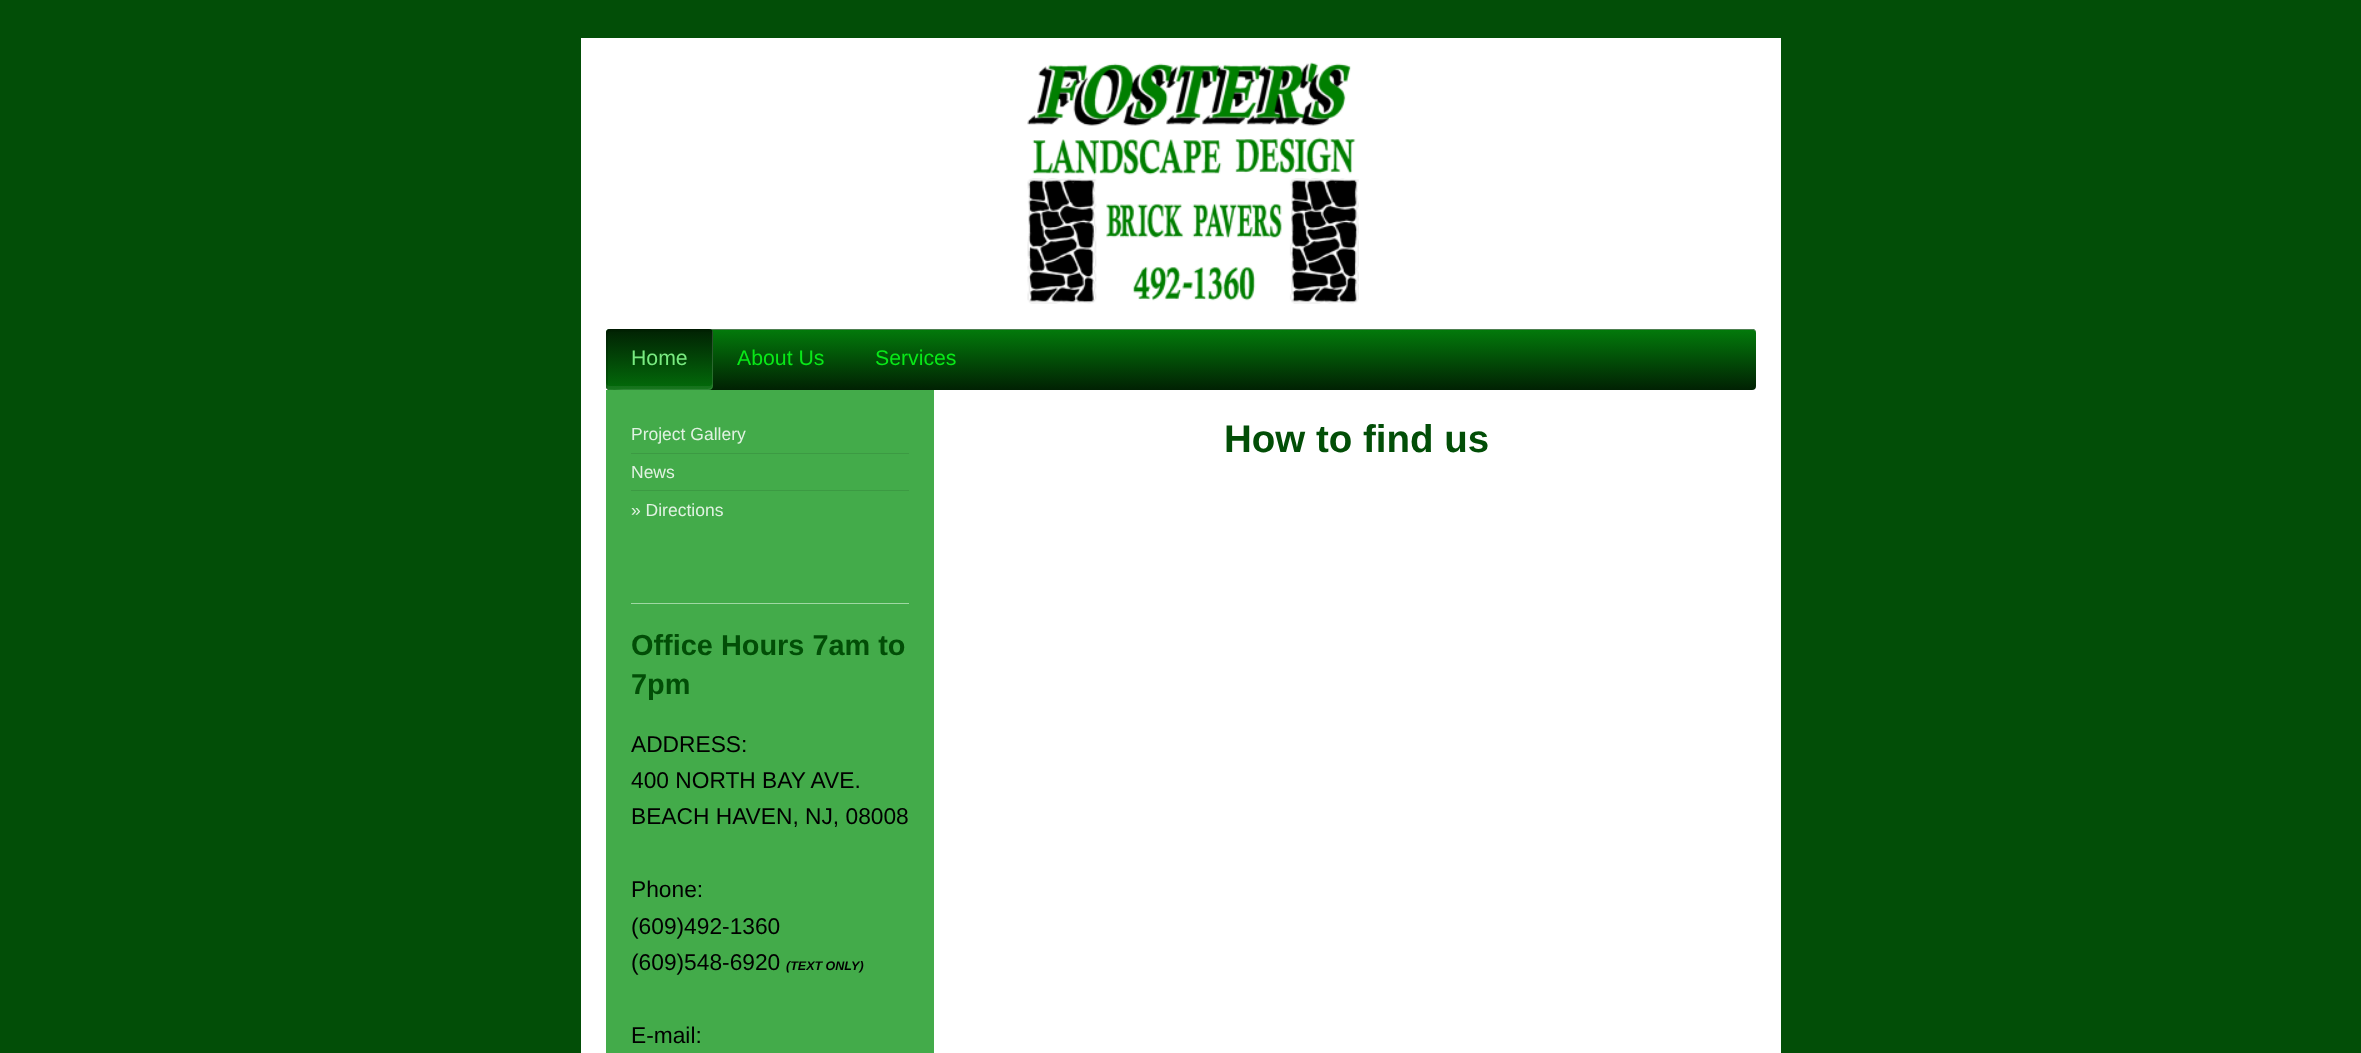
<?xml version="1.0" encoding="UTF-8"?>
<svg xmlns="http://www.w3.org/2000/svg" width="2361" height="1053">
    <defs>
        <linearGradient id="g1" gradientUnits="userSpaceOnUse" x1="606" y1="329" x2="606" y2="390"><stop offset="0" stop-color="#037B0B"/><stop offset="1" stop-color="#012103"/></linearGradient>
        <linearGradient id="g2" gradientUnits="userSpaceOnUse" x1="606" y1="390" x2="606" y2="329"><stop offset="0" stop-color="#036C0A"/><stop offset="1" stop-color="#012103"/></linearGradient>
    </defs>
    <rect width="100%" height="100%" fill="#024E07"/>
    <rect x="581" y="38" width="1200" height="1015" fill="#FFFFFF"/>
    <image x="1027" y="62" width="332" height="242" href="img_01.png"/>
    <rect x="606" y="329" width="1150" height="61" rx="4" fill="url(#g1)"/>
    <path d="M 610 330 H 1752 C 1755 330 1756 332 1756 334 C 1756 331 1755 329 1752 329 H 610 C 607 329 606 331 606 334 C 606 332 608 330 610 330 Z" fill="#024907"/>
    <path d="M 610 330 H 1752 C 1755 330 1756 332 1756 334 C 1756 331 1755 329 1752 329 H 610 C 607 329 606 331 606 334 C 606 332 608 330 610 330 Z" fill="#FFFFFF" fill-opacity="0.3"/>
    <rect x="606" y="329" width="107" height="61" rx="4" fill="url(#g2)"/>
    <path d="M 611 330 H 710 L 712 331 C 712 330 710 329 709 329 H 610 C 608 329 606 331 606 333 V 386 C 606 388 607 389 608 390 V 343 C 608 343 606 330 611 330 Z" fill="#000000" fill-opacity="0.15"/>
    <path d="M 610 332 H 709 C 711 332 712 334 712 336 V 389 C 713 388 713 387 713 386 V 333 C 713 331 711 329 709 329 H 610 C 608 329 606 331 606 333 V 336 C 606 334 608 332 610 332 Z" fill="#000000" fill-opacity="0.04"/>
    <path d="M 606 382 V 386 C 606 388 608 390 610 390 H 709 C 711 390 713 388 713 386 V 333 C 713 332 713 331 712 330 V 382 C 712 385 711 386 709 386 H 610 C 608 386 606 385 606 382 Z" fill="#FFFFFF" fill-opacity="0.08"/>
    <path d="M 606 385 V 386 C 606 388 608 390 610 390 H 709 C 711 390 713 388 713 386 V 333 C 713 332 713 331 712 330 V 367 C 712 392 717 389 692 389 H 626 C 619 389 606 392 606 385 Z" fill="#FFFFFF" fill-opacity="0.1"/>
    <text x="631" y="365" font-family="Liberation Sans" font-size="21.25" fill="#79EB80">Home</text>
    <text x="737" y="365" font-family="Liberation Sans" font-size="21.25" fill="#09E818">About Us</text>
    <text x="875" y="365" font-family="Liberation Sans" font-size="21.25" fill="#09E818">Services</text>
    <rect x="606" y="390" width="328" height="663" fill="#43AB4A"/>
    <text x="1224" y="452" font-family="Liberation Sans" font-size="38.5" font-weight="700" fill="#024E07">How to find us</text>
    <rect x="631" y="453" width="278" height="1" fill="#3C9A43"/>
    <text x="631" y="440" font-family="Liberation Sans" font-size="17.5" fill="#E1F2E2">Project Gallery</text>
    <rect x="631" y="490" width="278" height="1" fill="#3C9A43"/>
    <text x="631" y="478" font-family="Liberation Sans" font-size="17.5" fill="#E1F2E2">News</text>
    <text x="631" y="516" font-family="Liberation Sans" font-size="17.5" fill="#E1F2E2">» Directions</text>
    <rect x="631" y="603" width="278" height="1" fill="#9FD8A3"/>
    <text font-family="Liberation Sans" font-size="28.9" font-weight="700" fill="#024E07">
        <tspan x="631" y="655">Office Hours 7am to</tspan>
        <tspan x="631" y="694">7pm</tspan>
    </text>
    <text font-family="Liberation Sans" font-size="22.75" fill="#000000">
        <tspan x="631" y="752">ADDRESS:</tspan>
        <tspan x="631" y="788">400 NORTH BAY AVE.</tspan>
        <tspan x="631" y="824">BEACH HAVEN, NJ, 08008</tspan>
    </text>
    <text font-family="Liberation Sans" font-size="22.75" fill="#000000">
        <tspan x="631" y="897">Phone:</tspan>
        <tspan x="631" y="934">(609)492-1360</tspan>
        <tspan x="631" y="970">(609)548-6920</tspan>
    </text>
    <text x="786" y="970" font-family="Liberation Sans" font-size="12.5" font-weight="700" font-style="italic" fill="#000000">(TEXT ONLY)</text>
    <text x="631" y="1043" font-family="Liberation Sans" font-size="22.75" fill="#000000">E-mail:</text>
</svg>
